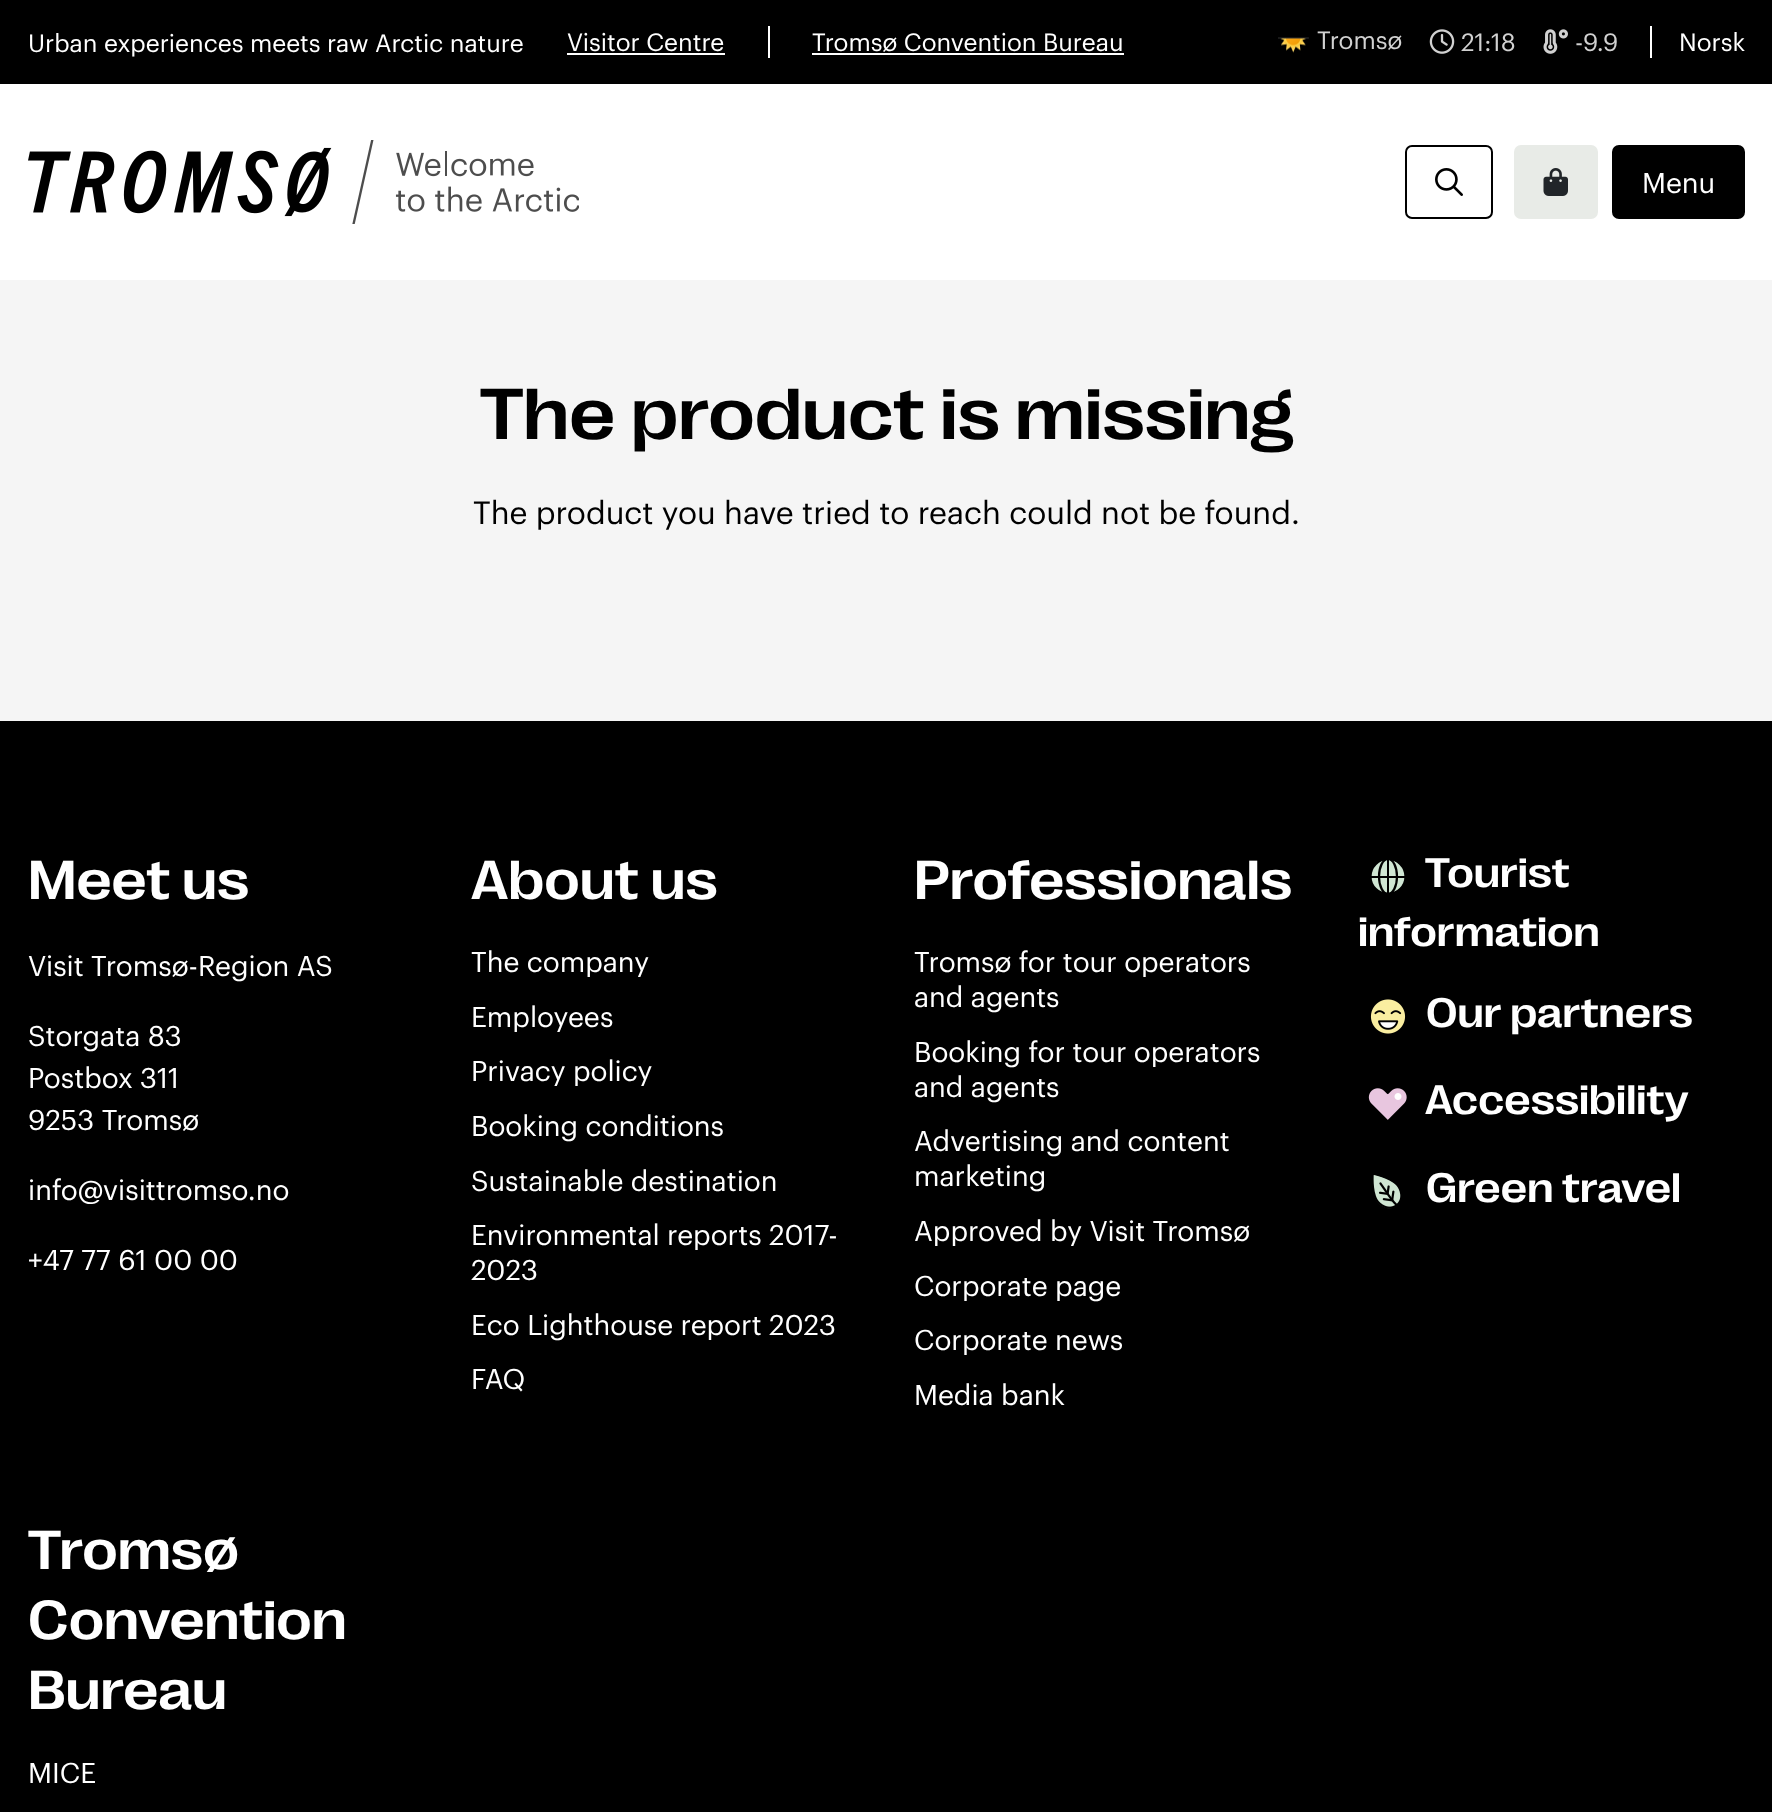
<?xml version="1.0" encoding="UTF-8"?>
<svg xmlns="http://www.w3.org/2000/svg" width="1772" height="1812">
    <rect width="100%" height="100%" fill="#F5F5F5"/>
    <rect x="0" y="84" width="1772" height="196" fill="#FFFFFF"/>
    <rect x="0" y="0" width="1772" height="84" fill="#000000"/>
    <text x="28" y="52" font-family="Graphik" font-size="24.5" fill="#FFFFFF">Urban experiences meets raw Arctic nature</text>
    <text x="567" y="51" font-family="Graphik" font-size="24.5" fill="#FFFFFF">Visitor Centre</text>
    <rect x="567" y="53" width="158" height="2" fill="#FFFFFF"/>
    <rect x="768" y="26" width="2" height="32" fill="#FFFFFF"/>
    <text x="812" y="51" font-family="Graphik" font-size="24.5" fill="#FFFFFF">Tromsø Convention Bureau</text>
    <rect x="812" y="53" width="312" height="2" fill="#FFFFFF"/>
    <image x="1278" y="37" width="31" height="16" href="img_01.png"/>
    <text x="1317" y="49" font-family="Graphik" font-size="24.5" fill="#D1D1D1">Tromsø</text>
    <image x="1429" y="29" width="26" height="25" href="img_02.png"/>
    <text x="1461" y="51" font-family="Graphik" font-size="24.5" fill="#D1D1D1">21:18</text>
    <image x="1543" y="29" width="25" height="25" href="img_03.png"/>
    <text x="1575" y="51" font-family="Graphik" font-size="24.5" fill="#D1D1D1">-9.9</text>
    <rect x="1650" y="26" width="2" height="32" fill="#FFFFFF"/>
    <text x="1679" y="51" font-family="Graphik" font-size="24.5" fill="#FFFFFF">Norsk</text>
    <image x="28" y="140" width="551" height="84" href="img_04.png"/>
    <rect x="1406" y="146" width="86" height="72" rx="6" fill="none" stroke="#000000" stroke-width="2"/>
    <image x="1435" y="168" width="28" height="28" href="img_05.png"/>
    <rect x="1515" y="146" width="82" height="72" rx="6" fill="#E8EBE7" stroke="#E8EBE7" stroke-width="2"/>
    <image x="1543" y="168" width="25" height="28" href="img_06.png"/>
    <rect x="1613" y="146" width="131" height="72" rx="6" fill="#000000" stroke="#000000" stroke-width="2"/>
    <text x="1642" y="193" font-family="Graphik" font-size="28" fill="#FFFFFF">Menu</text>
    <text x="480" y="439" font-family="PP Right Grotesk" font-size="73.5" font-weight="500" fill="#000000">The product is missing</text>
    <text x="473" y="524" font-family="Graphik" font-size="31.5" fill="#000000">The product you have tried to reach could not be found.</text>
    <rect x="0" y="721" width="1772" height="1091" fill="#000000"/>
    <text x="28" y="899" font-family="PP Right Grotesk" font-size="56" font-weight="500" fill="#FFFFFF">Meet us</text>
    <text x="28" y="976" font-family="Graphik" font-size="28" fill="#FFFFFF">Visit Tromsø-Region AS</text>
    <text font-family="Graphik" font-size="28" fill="#FFFFFF">
        <tspan x="28" y="1046">Storgata 83</tspan>
        <tspan x="28" y="1088">Postbox 311</tspan>
        <tspan x="28" y="1130">9253 Tromsø</tspan>
    </text>
    <text x="28" y="1200" font-family="Graphik" font-size="28" fill="#FFFFFF">info@visittromso.no</text>
    <text x="28" y="1270" font-family="Graphik" font-size="28" fill="#FFFFFF">+47 77 61 00 00</text>
    <text x="471" y="899" font-family="PP Right Grotesk" font-size="56" font-weight="500" fill="#FFFFFF">About us</text>
    <text font-family="Graphik" font-size="28" fill="#FFFFFF">
        <tspan x="471" y="972">The company</tspan>
        <tspan x="471" y="1027">Employees</tspan>
        <tspan x="471" y="1081">Privacy policy</tspan>
        <tspan x="471" y="1136">Booking conditions</tspan>
        <tspan x="471" y="1191">Sustainable destination</tspan>
        <tspan x="471" y="1245">Environmental reports 2017-</tspan>
        <tspan x="471" y="1280">2023</tspan>
        <tspan x="471" y="1335">Eco Lighthouse report 2023</tspan>
        <tspan x="471" y="1389">FAQ</tspan>
    </text>
    <text x="914" y="899" font-family="PP Right Grotesk" font-size="56" font-weight="500" fill="#FFFFFF">Professionals</text>
    <text font-family="Graphik" font-size="28" fill="#FFFFFF">
        <tspan x="914" y="972">Tromsø for tour operators</tspan>
        <tspan x="914" y="1007">and agents</tspan>
        <tspan x="914" y="1062">Booking for tour operators</tspan>
        <tspan x="914" y="1097">and agents</tspan>
        <tspan x="914" y="1151">Advertising and content</tspan>
        <tspan x="914" y="1186">marketing</tspan>
        <tspan x="914" y="1241">Approved by Visit Tromsø</tspan>
        <tspan x="914" y="1296">Corporate page</tspan>
        <tspan x="914" y="1350">Corporate news</tspan>
        <tspan x="914" y="1405">Media bank</tspan>
    </text>
    <circle cx="1388" cy="876.5" r="17.5" fill="#D0E6D3" stroke="#000000" stroke-width="2.2"/>
    <ellipse cx="1388" cy="876.5" rx="9" ry="17.5" fill="none" stroke="#000000" stroke-width="2.2"/>
    <text x="1425" y="887" font-family="PP Right Grotesk" font-size="42" font-weight="500" fill="#FFFFFF">Tourist</text>
    <rect x="1387" y="859" width="2" height="36" fill="#000000"/>
    <rect x="1370" y="876" width="36" height="2" fill="#000000"/>
    <text x="1358" y="946" font-family="PP Right Grotesk" font-size="42" font-weight="500" fill="#FFFFFF">information</text>
    <image x="1370" y="999" width="36" height="35" href="img_07.png"/>
    <text x="1426" y="1027" font-family="PP Right Grotesk" font-size="42" font-weight="500" fill="#FFFFFF">Our partners</text>
    <image x="1368" y="1088" width="39" height="32" href="img_08.png"/>
    <text x="1425" y="1114" font-family="PP Right Grotesk" font-size="42" font-weight="500" fill="#FFFFFF">Accessibility</text>
    <image x="1373" y="1175" width="28" height="34" href="img_09.png"/>
    <text x="1426" y="1202" font-family="PP Right Grotesk" font-size="42" font-weight="500" fill="#FFFFFF">Green travel</text>
    <text font-family="PP Right Grotesk" font-size="56" font-weight="500" fill="#FFFFFF">
        <tspan x="28" y="1569">Tromsø</tspan>
        <tspan x="28" y="1639">Convention</tspan>
        <tspan x="28" y="1709">Bureau</tspan>
    </text>
    <text x="28" y="1783" font-family="Graphik" font-size="28" fill="#FFFFFF">MICE</text>
</svg>
